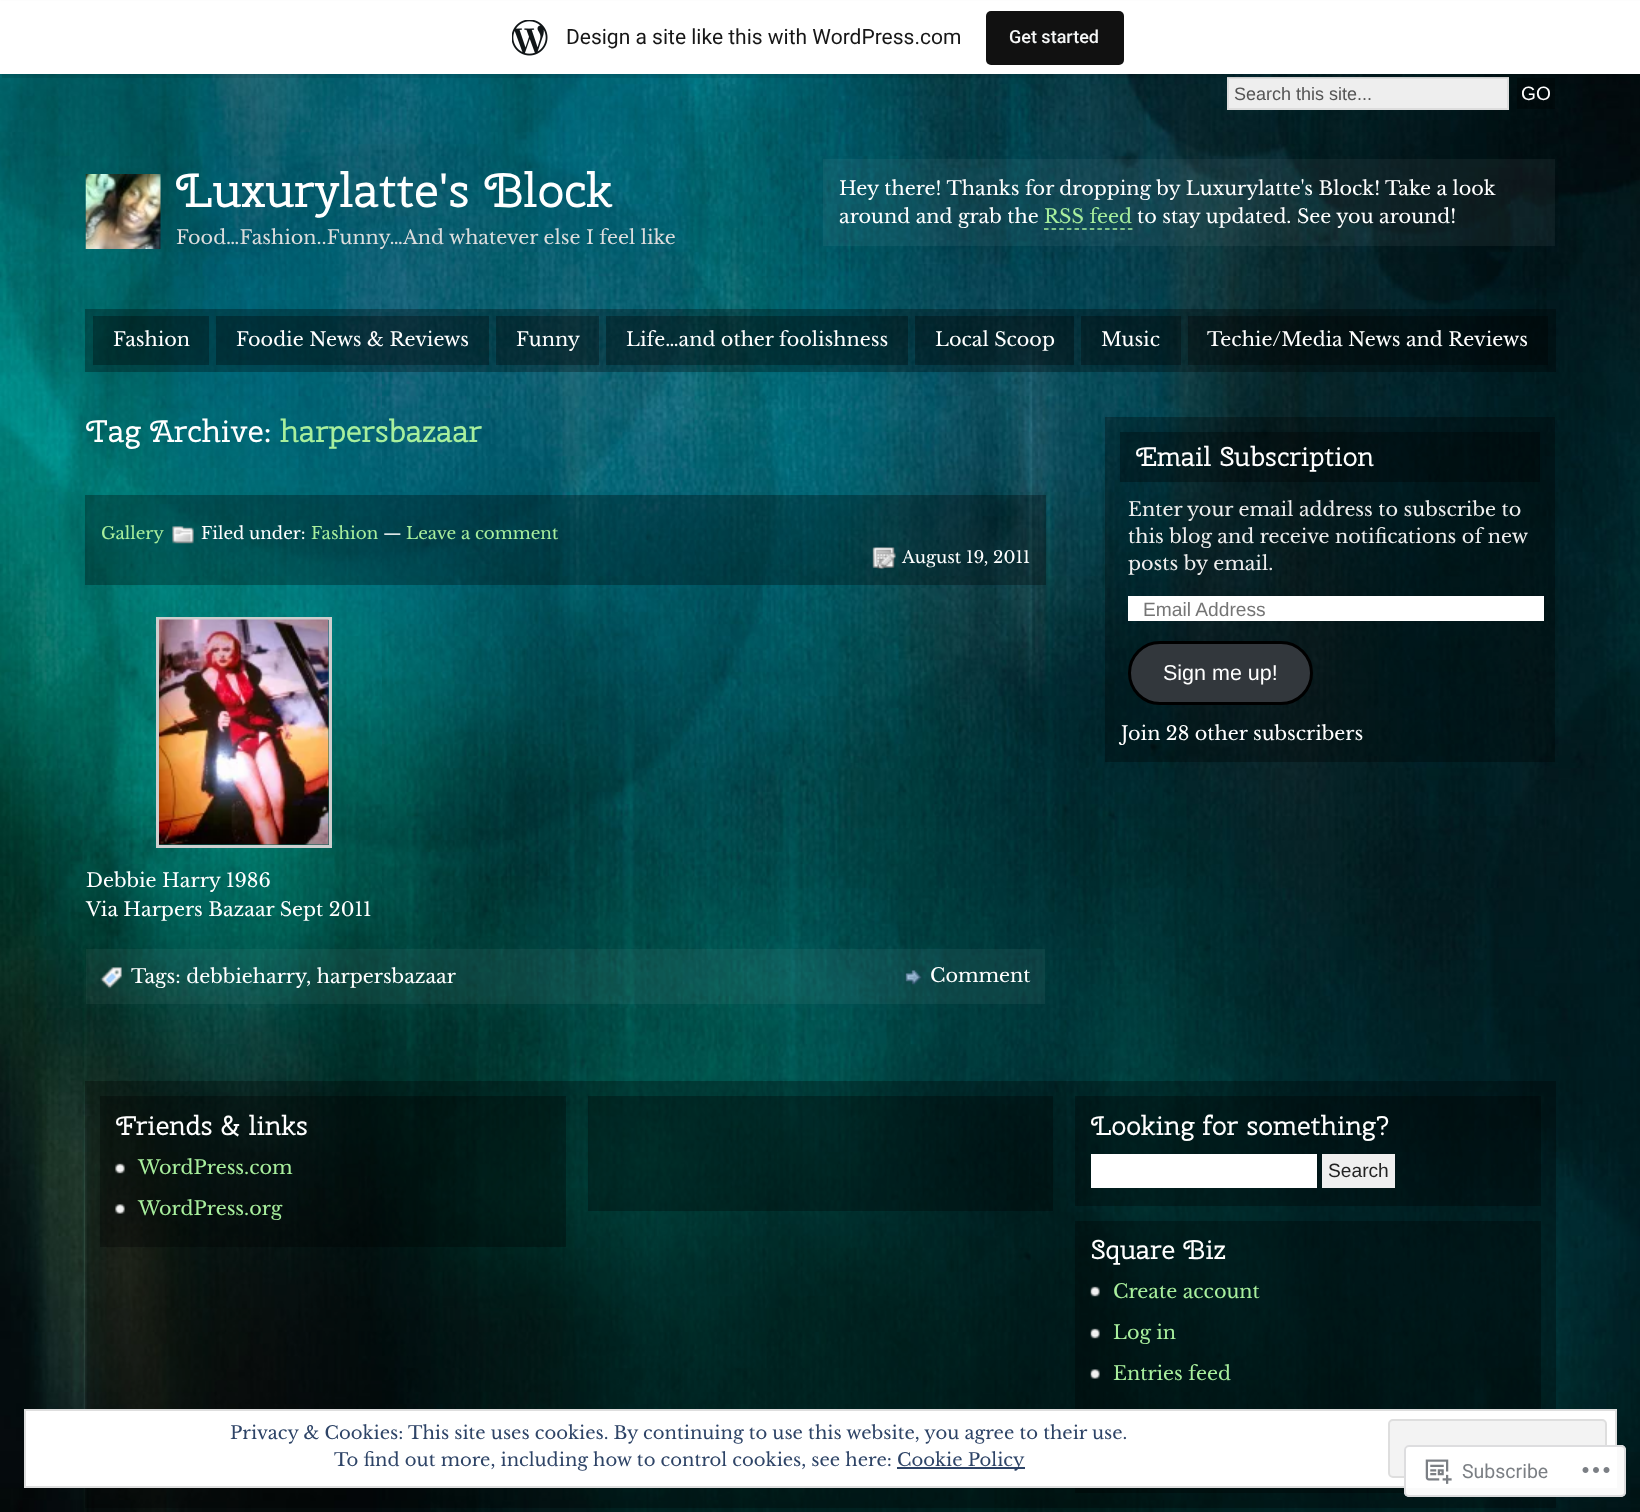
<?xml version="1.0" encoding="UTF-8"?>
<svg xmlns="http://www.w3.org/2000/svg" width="1640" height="1512">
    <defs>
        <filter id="blur1" x="-50%" y="-200%" width="200%" height="500%"><feGaussianBlur stdDeviation="1.5"/></filter>
        <clipPath id="clip1"><rect x="86" y="417" width="960" height="665"/></clipPath>
    </defs>
    <rect width="100%" height="100%" fill="#FFFFFF"/>
    <image x="0" y="74" width="1640" height="1438" href="img_01.png"/>
    <rect x="1228" y="78" width="280" height="31" fill="#EEEEEE" stroke="#DDDDDD" stroke-width="2"/>
    <rect x="1517" y="78" width="38" height="31" fill="#000000" fill-opacity="0.3"/>
    <rect x="0" y="2" width="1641" height="73" fill="#000000" fill-opacity="0.05" filter="url(#blur1)"/>
    <path d="M 2 74 V 78 H 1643 V 5 H 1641 V 74 Z" fill="#000000" fill-opacity="0.08"/>
    <rect x="0" y="1" width="1640" height="73" fill="#FFFFFF"/>
    <image x="512" y="20" width="36" height="36" href="img_02.png"/>
    <text x="566" y="44" font-family="Roboto" font-size="21" fill="#171717">Design a site like this with WordPress.com</text>
    <rect x="986" y="11" width="138" height="54" rx="5" fill="#111111"/>
    <text x="1009" y="43" font-family="Roboto" font-size="18" font-weight="500" fill="#F6F7F7">Get started</text>
    <text x="1234" y="100" font-family="Liberation Sans" font-size="18" fill="#555555">Search this site...</text>
    <text x="1521" y="100" font-family="Liberation Sans" font-size="19.2" fill="#FFFFFF">GO</text>
    <image x="85" y="174" width="76" height="75" href="img_03.png"/>
    <text x="176" y="207" font-family="Cherry Swash" font-size="48" fill="#FFFFFF">Luxurylatte's Block</text>
    <text x="176" y="244" font-family="Libre Baskerville" font-size="19.2" fill="#DDDDDD">Food…Fashion..Funny…And whatever else I feel like</text>
    <rect x="823" y="159" width="732" height="87" fill="#FFFFFF" fill-opacity="0.05"/>
    <text font-family="Libre Baskerville" font-size="19.2" fill="#FFFFFF">
        <tspan x="839" y="195">Hey there! Thanks for dropping by Luxurylatte's Block! Take a look</tspan>
        <tspan x="839" y="223">around and grab the</tspan>
    </text>
    <text x="1044" y="223" font-family="Libre Baskerville" font-size="19.2" fill="#A8EF9D">RSS feed</text>
    <path d="M 1044 229 H 1132.5" fill="none" stroke="#A8EF9D" stroke-width="1.5" stroke-dasharray="4.5 3.13"/>
    <text x="1137" y="223" font-family="Libre Baskerville" font-size="19.2" fill="#FFFFFF">to stay updated. See you around!</text>
    <rect x="85" y="309" width="1471" height="63" fill="#000000" fill-opacity="0.3"/>
    <rect x="93" y="316" width="116" height="49" fill="#000000" fill-opacity="0.3"/>
    <text x="113" y="346" font-family="Libre Baskerville" font-size="19.2" fill="#FFFFFF">Fashion</text>
    <rect x="216" y="316" width="273" height="49" fill="#000000" fill-opacity="0.3"/>
    <text x="236" y="346" font-family="Libre Baskerville" font-size="19.2" fill="#FFFFFF">Foodie News &amp; Reviews</text>
    <rect x="496" y="316" width="103" height="49" fill="#000000" fill-opacity="0.3"/>
    <text x="516" y="346" font-family="Libre Baskerville" font-size="19.2" fill="#FFFFFF">Funny</text>
    <rect x="606" y="316" width="302" height="49" fill="#000000" fill-opacity="0.3"/>
    <text x="626" y="346" font-family="Libre Baskerville" font-size="19.2" fill="#FFFFFF">Life…and other foolishness</text>
    <rect x="915" y="316" width="159" height="49" fill="#000000" fill-opacity="0.3"/>
    <text x="935" y="346" font-family="Libre Baskerville" font-size="19.2" fill="#FFFFFF">Local Scoop</text>
    <rect x="1081" y="316" width="100" height="49" fill="#000000" fill-opacity="0.3"/>
    <text x="1101" y="346" font-family="Libre Baskerville" font-size="19.2" fill="#FFFFFF">Music</text>
    <rect x="1188" y="316" width="360" height="49" fill="#000000" fill-opacity="0.3"/>
    <text x="1207" y="346" font-family="Libre Baskerville" font-size="19.2" fill="#FFFFFF">Techie/Media News and Reviews</text>
    <g clip-path="url(#clip1)">
        <text x="86" y="442" font-family="Cherry Swash" font-size="31.25" fill="#FFFFFF">Tag Archive:</text>
    </g>
    <text x="280" y="442" font-family="Cherry Swash" font-size="31.25" fill="#A8EF9D">harpersbazaar</text>
    <rect x="85" y="495" width="961" height="90" fill="#000000" fill-opacity="0.3"/>
    <text x="101" y="539" font-family="Libre Baskerville" font-size="16.75" fill="#A8EF9D">Gallery</text>
    <image x="172" y="526" width="22" height="18" href="img_04.png"/>
    <text x="201" y="539" font-family="Libre Baskerville" font-size="16.75" fill="#FFFFFF">Filed under:</text>
    <text x="311" y="539" font-family="Libre Baskerville" font-size="16.75" fill="#A8EF9D">Fashion</text>
    <text x="383" y="539" font-family="Libre Baskerville" font-size="16.75" fill="#FFFFFF">—</text>
    <text x="406" y="539" font-family="Libre Baskerville" font-size="16.75" fill="#A8EF9D">Leave a comment</text>
    <image x="872" y="547" width="24" height="22" href="img_05.png"/>
    <text x="902" y="563" font-family="Libre Baskerville" font-size="16.75" fill="#FFFFFF">August 19, 2011</text>
    <rect x="157.5" y="618.5" width="173" height="228" fill="none" stroke="#CFCFCF" stroke-width="3"/>
    <image x="159" y="619" width="170" height="226" href="img_06.png"/>
    <text font-family="Libre Baskerville" font-size="19.2" fill="#FFFFFF">
        <tspan x="86" y="887">Debbie Harry 1986</tspan>
        <tspan x="86" y="916">Via Harpers Bazaar Sept 2011</tspan>
    </text>
    <rect x="86" y="949" width="959" height="55" fill="#FFFFFF" fill-opacity="0.05"/>
    <image x="100" y="967" width="22" height="22" href="img_07.png"/>
    <text x="131" y="983" font-family="Libre Baskerville" font-size="19.2" fill="#FFFFFF">Tags: debbieharry</text>
    <text x="306" y="983" font-family="Libre Baskerville" font-size="19.2" fill="#FFFFFF">, harpersbazaar</text>
    <image x="905" y="970" width="17" height="15" href="img_08.png"/>
    <text x="930" y="982" font-family="Libre Baskerville" font-size="19.2" fill="#FFFFFF">Comment</text>
    <rect x="1105" y="417" width="450" height="345" fill="#000000" fill-opacity="0.3"/>
    <rect x="1120" y="432" width="420" height="50" fill="#000000" fill-opacity="0.3"/>
    <text x="1136" y="466" font-family="Cherry Swash" font-size="26.9" fill="#FFFFFF">Email Subscription</text>
    <text font-family="Libre Baskerville" font-size="19.2" fill="#EEEEEE">
        <tspan x="1128" y="516">Enter your email address to subscribe to</tspan>
        <tspan x="1128" y="543">this blog and receive notifications of new</tspan>
        <tspan x="1128" y="570">posts by email.</tspan>
    </text>
    <rect x="1128" y="596" width="416" height="25" fill="#FFFFFF"/>
    <text x="1143" y="616" font-family="Liberation Sans" font-size="19.2" fill="#757575">Email Address</text>
    <rect x="1129.5" y="642.5" width="182" height="61" rx="30.5" fill="#32373C" stroke="#000000" stroke-width="3"/>
    <text x="1163" y="680" font-family="Liberation Sans" font-size="21.5" fill="#FFFFFF">Sign me up!</text>
    <text x="1121" y="740" font-family="Libre Baskerville" font-size="19.2" fill="#FFFFFF">Join 28 other subscribers</text>
    <rect x="85" y="1081" width="1471" height="427" fill="#000000" fill-opacity="0.3"/>
    <rect x="100" y="1096" width="466" height="151" fill="#000000" fill-opacity="0.3"/>
    <text x="116" y="1135" font-family="Cherry Swash" font-size="26.9" fill="#FFFFFF">Friends &amp; links</text>
    <image x="115" y="1163" width="10" height="11" href="img_09.png"/>
    <text x="138" y="1174" font-family="Libre Baskerville" font-size="19.2" fill="#A8EF9D">WordPress.com</text>
    <image x="115" y="1204" width="10" height="10" href="img_10.png"/>
    <text x="138" y="1215" font-family="Libre Baskerville" font-size="19.2" fill="#A8EF9D">WordPress.org</text>
    <rect x="588" y="1096" width="465" height="115" fill="#000000" fill-opacity="0.3"/>
    <rect x="1075" y="1096" width="466" height="110" fill="#000000" fill-opacity="0.3"/>
    <text x="1091" y="1135" font-family="Cherry Swash" font-size="26.9" fill="#FFFFFF">Looking for something?</text>
    <rect x="1091" y="1154" width="226" height="34" fill="#FFFFFF"/>
    <rect x="1322" y="1154" width="73" height="34" fill="#EFEFEF"/>
    <text x="1328" y="1177" font-family="Liberation Sans" font-size="19.2" fill="#222222">Search</text>
    <rect x="1075" y="1221" width="466" height="272" fill="#000000" fill-opacity="0.3"/>
    <text x="1091" y="1259" font-family="Cherry Swash" font-size="26.9" fill="#FFFFFF">Square Biz</text>
    <image x="1090" y="1286" width="10" height="11" href="img_11.png"/>
    <text x="1113" y="1298" font-family="Libre Baskerville" font-size="19.2" fill="#A8EF9D">Create account</text>
    <image x="1090" y="1328" width="10" height="11" href="img_12.png"/>
    <text x="1113" y="1339" font-family="Libre Baskerville" font-size="19.2" fill="#A8EF9D">Log in</text>
    <image x="1090" y="1369" width="10" height="10" href="img_13.png"/>
    <text x="1113" y="1380" font-family="Libre Baskerville" font-size="19.2" fill="#A8EF9D">Entries feed</text>
    <rect x="25" y="1410" width="1591" height="77" fill="#FFFFFF" stroke="#DEDEDE" stroke-width="2"/>
    <text x="230" y="1439" font-family="Libre Baskerville" font-size="18" fill="#2E4467">Privacy &amp; Cookies: This site uses cookies. By continuing to use this website, you agree to their use.</text>
    <rect x="1389" y="1420" width="217" height="57" rx="4" fill="#F3F3F3" stroke="#DEDEDE" stroke-width="2"/>
    <text x="334" y="1466" font-family="Libre Baskerville" font-size="18" fill="#2E4467">To find out more, including how to control cookies, see here:</text>
    <rect x="897" y="1467" width="128" height="2" fill="#2E4467"/>
    <text x="897" y="1466" font-family="Libre Baskerville" font-size="18" fill="#2E4467">Cookie Policy</text>
    <rect x="1404" y="1445" width="222" height="52" rx="5" fill="#FFFFFF" fill-opacity="0.98"/>
    <rect x="1405" y="1446" width="220" height="50" rx="4" fill="none" stroke="#DCDCDE" stroke-opacity="0.98" stroke-width="2"/>
    <image x="1425" y="1459" width="27" height="25" href="img_14.png"/>
    <text x="1462" y="1478" font-family="Roboto" font-size="19.5" fill="#7B7F84">Subscribe</text>
    <image x="1582" y="1467" width="28" height="6" href="img_15.png"/>
</svg>
